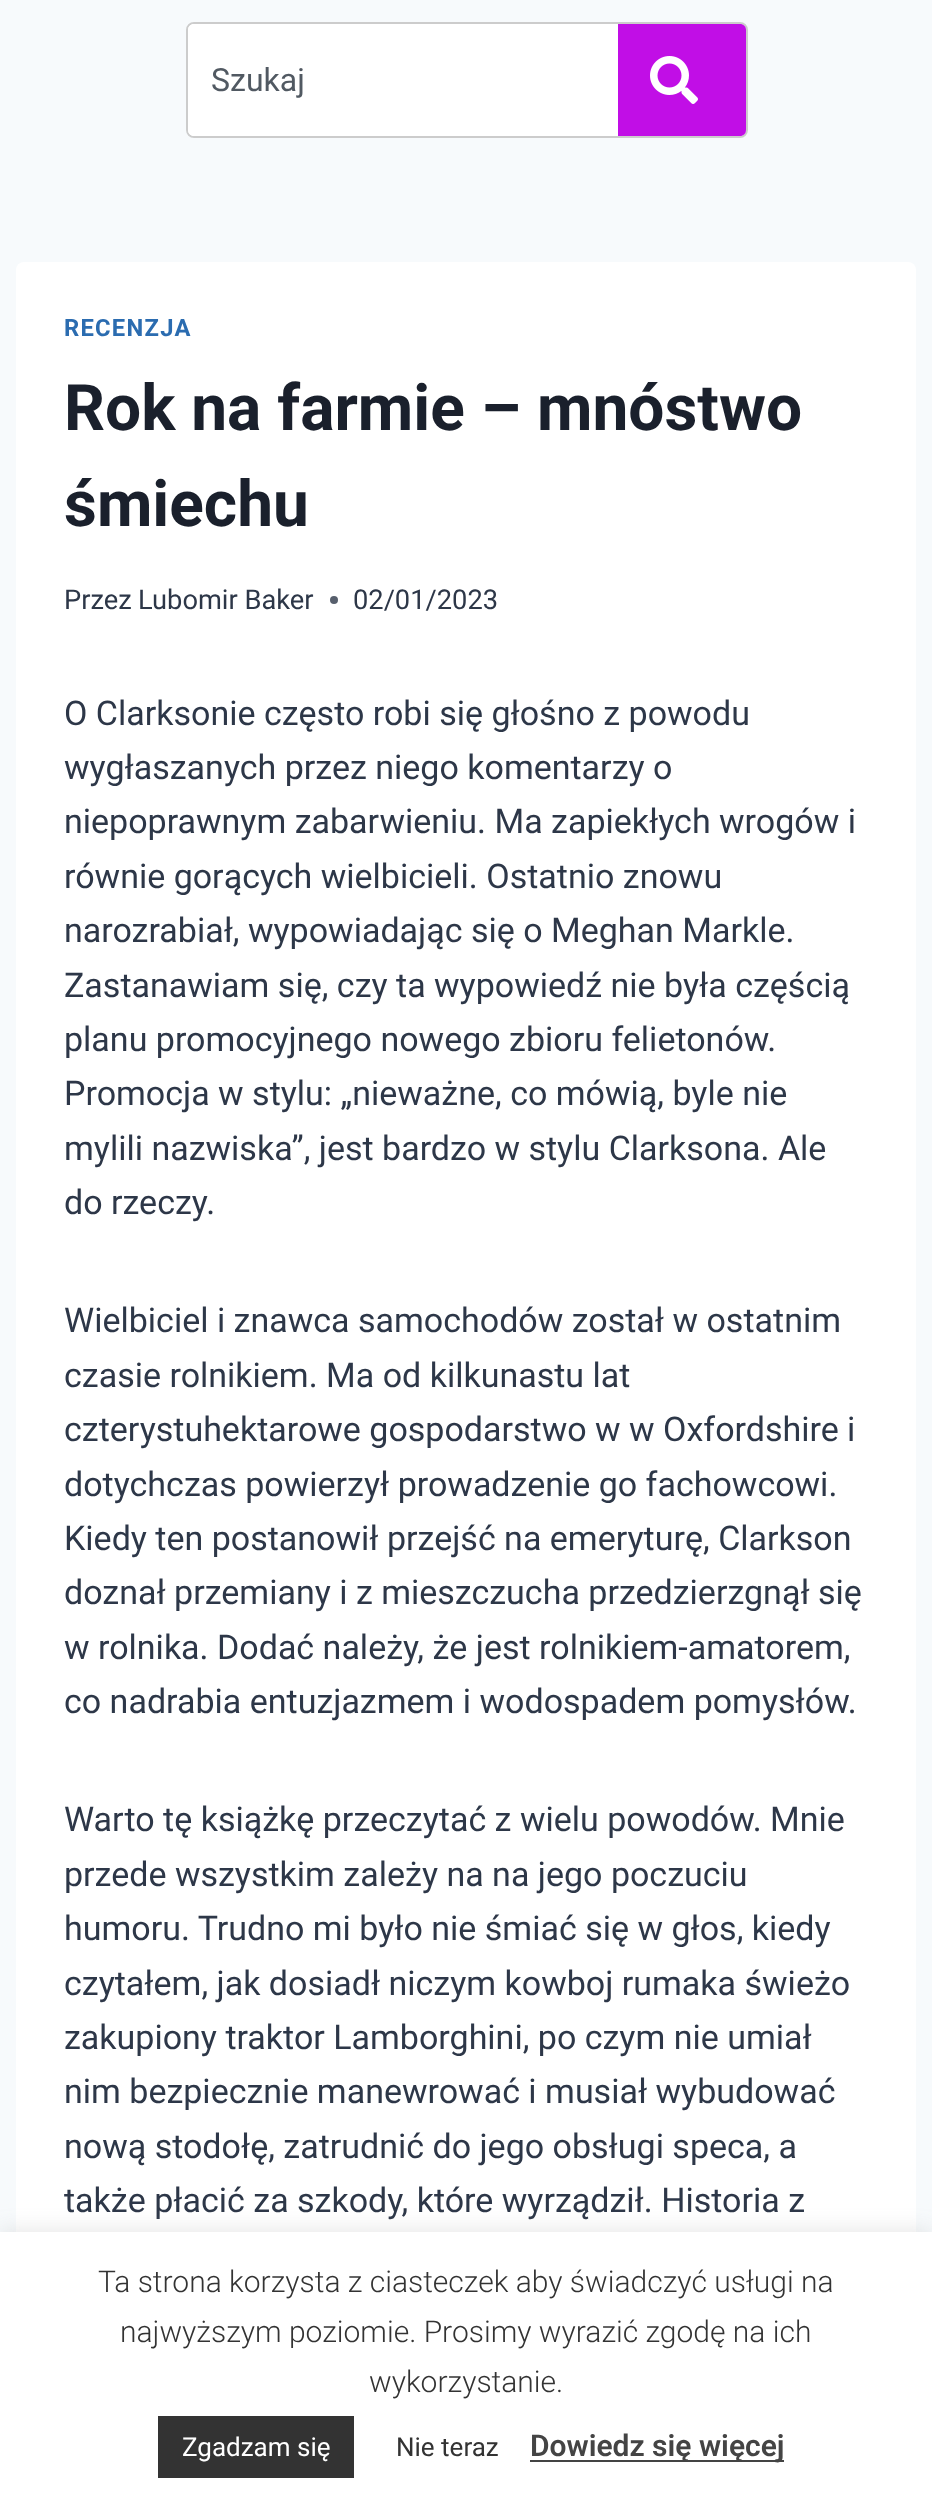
<?xml version="1.0" encoding="UTF-8"?>
<svg xmlns="http://www.w3.org/2000/svg" width="932" height="2501">
    <defs>
        <filter id="blur1" x="-50%" y="-200%" width="200%" height="500%"><feGaussianBlur stdDeviation="10"/></filter>
    </defs>
    <rect width="100%" height="100%" fill="#F7FAFC"/>
    <rect x="187" y="23" width="560" height="114" rx="7" fill="#FFFFFF" stroke="#CCCCCC" stroke-width="2"/>
    <path d="M 194 24 H 602 V 136 H 194 C 190.5 136 188 133.5 188 130 V 30 C 188 26.5 190.5 24 194 24 Z" fill="#FFFFFF"/>
    <text x="211" y="91" font-family="Roboto" font-size="32" fill="#515962">Szukaj</text>
    <path d="M 618 24 H 740 C 743.5 24 746 26.5 746 30 V 130 C 746 133.5 743.5 136 740 136 H 618 Z" fill="#C10EE6"/>
    <image x="650" y="56" width="48" height="48" href="img_01.png"/>
    <rect x="16" y="262" width="900" height="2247" rx="8" fill="#FFFFFF"/>
    <text x="64" y="336" font-family="Roboto" font-size="23.75" font-weight="700" letter-spacing="1.25" fill="#2B6CB0">RECENZJA</text>
    <text font-family="Roboto" font-size="64" font-weight="700" fill="#1A202C">
        <tspan x="64" y="430">Rok na farmie – mnóstwo</tspan>
        <tspan x="64" y="526">śmiechu</tspan>
    </text>
    <text x="64" y="609" font-family="Roboto" font-size="27.25" fill="#2D3748">Przez</text>
    <text x="138" y="609" font-family="Roboto" font-size="27.25" fill="#2D3748">Lubomir Baker</text>
    <circle cx="334" cy="600" r="4" fill="#575F6D"/>
    <text x="353" y="609" font-family="Roboto" font-size="27.25" fill="#2D3748">02/01/2023</text>
    <text font-family="Roboto" font-size="34" fill="#2D3748">
        <tspan x="64" y="725">O Clarksonie często robi się głośno z powodu</tspan>
        <tspan x="64" y="779">wygłaszanych przez niego komentarzy o</tspan>
        <tspan x="64" y="833">niepoprawnym zabarwieniu. Ma zapiekłych wrogów i</tspan>
        <tspan x="64" y="888">równie gorących wielbicieli. Ostatnio znowu</tspan>
        <tspan x="64" y="942">narozrabiał, wypowiadając się o Meghan Markle.</tspan>
        <tspan x="64" y="997">Zastanawiam się, czy ta wypowiedź nie była częścią</tspan>
        <tspan x="64" y="1051">planu promocyjnego nowego zbioru felietonów.</tspan>
        <tspan x="64" y="1105">Promocja w stylu: „nieważne, co mówią, byle nie</tspan>
        <tspan x="64" y="1160">mylili nazwiska”, jest bardzo w stylu Clarksona. Ale</tspan>
        <tspan x="64" y="1214">do rzeczy.</tspan>
    </text>
    <text font-family="Roboto" font-size="34" fill="#2D3748">
        <tspan x="64" y="1332">Wielbiciel i znawca samochodów został w ostatnim</tspan>
        <tspan x="64" y="1387">czasie rolnikiem. Ma od kilkunastu lat</tspan>
        <tspan x="64" y="1441">czterystuhektarowe gospodarstwo w w Oxfordshire i</tspan>
        <tspan x="64" y="1496">dotychczas powierzył prowadzenie go fachowcowi.</tspan>
        <tspan x="64" y="1550">Kiedy ten postanowił przejść na emeryturę, Clarkson</tspan>
        <tspan x="64" y="1604">doznał przemiany i z mieszczucha przedzierzgnął się</tspan>
        <tspan x="64" y="1659">w rolnika. Dodać należy, że jest rolnikiem-amatorem,</tspan>
        <tspan x="64" y="1713">co nadrabia entuzjazmem i wodospadem pomysłów.</tspan>
    </text>
    <text font-family="Roboto" font-size="34" fill="#2D3748">
        <tspan x="64" y="1831">Warto tę książkę przeczytać z wielu powodów. Mnie</tspan>
        <tspan x="64" y="1886">przede wszystkim zależy na na jego poczuciu</tspan>
        <tspan x="64" y="1940">humoru. Trudno mi było nie śmiać się w głos, kiedy</tspan>
        <tspan x="64" y="1995">czytałem, jak dosiadł niczym kowboj rumaka świeżo</tspan>
        <tspan x="64" y="2049">zakupiony traktor Lamborghini, po czym nie umiał</tspan>
        <tspan x="64" y="2103">nim bezpiecznie manewrować i musiał wybudować</tspan>
        <tspan x="64" y="2158">nową stodołę, zatrudnić do jego obsługi speca, a</tspan>
        <tspan x="64" y="2212">także płacić za szkody, które wyrządził. Historia z</tspan>
    </text>
    <rect x="0" y="2230" width="932" height="270" fill="#ACABAB" fill-opacity="0.3" filter="url(#blur1)"/>
    <rect x="0" y="2232" width="932" height="269" fill="#FFFFFF"/>
    <text x="98" y="2292" font-family="Roboto" font-size="30" font-weight="300" fill="#333333">Ta strona korzysta z ciasteczek aby świadczyć usługi na</text>
    <text x="120" y="2342" font-family="Roboto" font-size="30" font-weight="300" fill="#333333">najwyższym poziomie. Prosimy wyrazić zgodę na ich</text>
    <text x="369" y="2392" font-family="Roboto" font-size="30" font-weight="300" fill="#333333">wykorzystanie.</text>
    <rect x="158" y="2416" width="196" height="62" fill="#333333"/>
    <text x="182" y="2456" font-family="Roboto" font-size="26" fill="#FFFFFF">Zgadzam się</text>
    <text x="396" y="2456" font-family="Roboto" font-size="26" fill="#333333">Nie teraz</text>
    <rect x="530" y="2460" width="254" height="2" fill="#444444"/>
    <text x="530" y="2456" font-family="Roboto" font-size="30" font-weight="600" fill="#444444">Dowiedz się więcej</text>
</svg>
